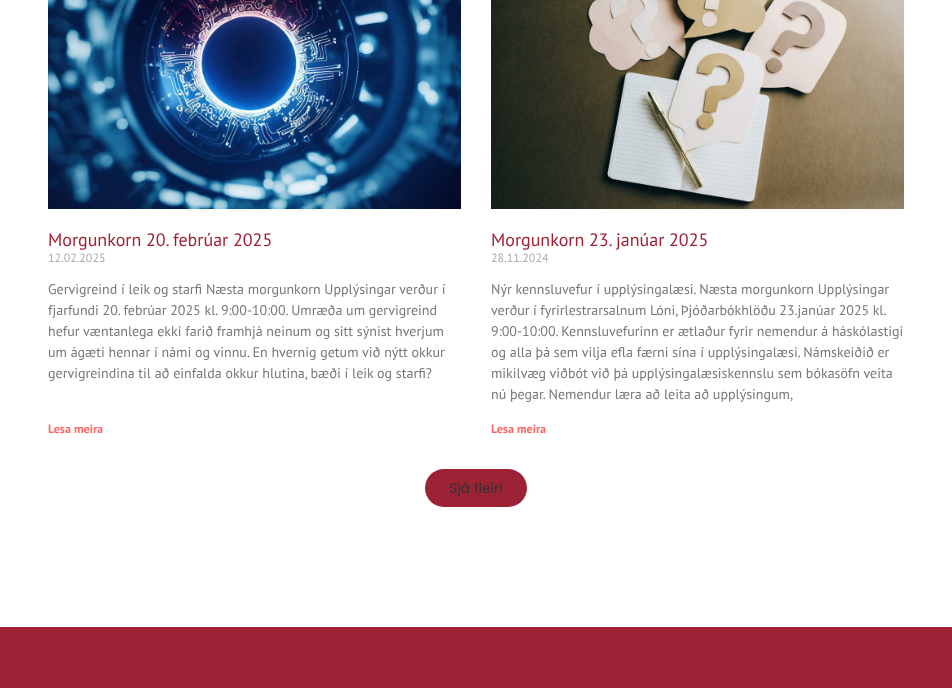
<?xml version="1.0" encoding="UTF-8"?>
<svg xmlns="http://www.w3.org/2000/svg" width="952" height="688">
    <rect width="100%" height="100%" fill="#FFFFFF"/>
    <image x="48" y="0" width="413" height="209" href="img_01.png"/>
    <text x="48" y="246" font-family="PT Sans" font-size="18" fill="#9D2235">Morgunkorn 20. febrúar 2025</text>
    <text x="48" y="262" font-family="PT Sans" font-size="12" fill="#ADADAD">12.02.2025</text>
    <text font-family="PT Sans" font-size="14" fill="#777777">
        <tspan x="48" y="294">Gervigreind í leik og starfi Næsta morgunkorn Upplýsingar verður í</tspan>
        <tspan x="48" y="315">fjarfundi 20. febrúar 2025 kl. 9:00-10:00. Umræða um gervigreind</tspan>
        <tspan x="48" y="336">hefur væntanlega ekki farið framhjá neinum og sitt sýnist hverjum</tspan>
        <tspan x="48" y="357">um ágæti hennar í námi og vinnu. En hvernig getum við nýtt okkur</tspan>
        <tspan x="48" y="378">gervigreindina til að einfalda okkur hlutina, bæði í leik og starfi?</tspan>
    </text>
    <text x="48" y="433" font-family="PT Sans" font-size="12" font-weight="700" fill="#FA6868">Lesa meira</text>
    <image x="491" y="0" width="413" height="209" href="img_02.png"/>
    <text x="491" y="246" font-family="PT Sans" font-size="18" fill="#9D2235">Morgunkorn 23. janúar 2025</text>
    <text x="491" y="262" font-family="PT Sans" font-size="12" fill="#ADADAD">28.11.2024</text>
    <text font-family="PT Sans" font-size="14" fill="#777777">
        <tspan x="491" y="294">Nýr kennsluvefur í upplýsingalæsi. Næsta morgunkorn Upplýsingar</tspan>
        <tspan x="491" y="315" word-spacing="-0.25">verður í fyrirlestrarsalnum Lóni, Þjóðarbókhlöðu 23.janúar 2025 kl.</tspan>
        <tspan x="491" y="336">9:00-10:00. Kennsluvefurinn er ætlaður fyrir nemendur á háskólastigi</tspan>
        <tspan x="491" y="357">og alla þá sem vilja efla færni sína í upplýsingalæsi. Námskeiðið er</tspan>
        <tspan x="491" y="378">mikilvæg viðbót við þá upplýsingalæsiskennslu sem bókasöfn veita</tspan>
        <tspan x="491" y="399">nú þegar. Nemendur læra að leita að upplýsingum,</tspan>
    </text>
    <text x="491" y="433" font-family="PT Sans" font-size="12" font-weight="700" fill="#FA6868">Lesa meira</text>
    <rect x="425" y="469" width="102" height="38" rx="19" fill="#9D2235"/>
    <text x="449" y="493" font-family="Poppins" font-size="14" fill="#333333">Sjá fleiri</text>
    <rect x="0" y="627" width="952" height="61" fill="#9D2235"/>
</svg>
